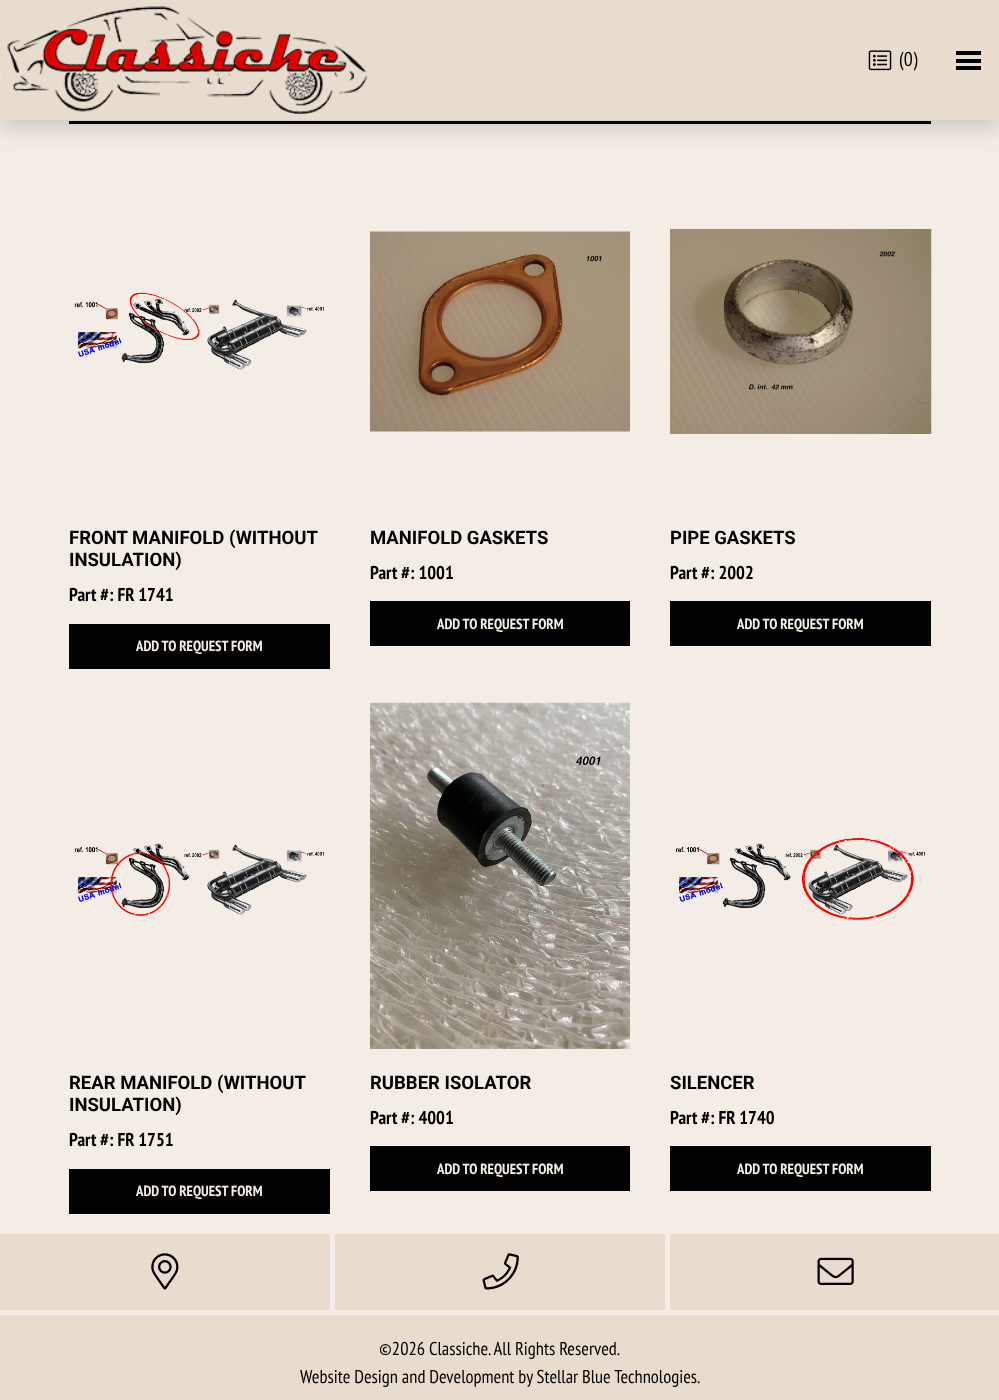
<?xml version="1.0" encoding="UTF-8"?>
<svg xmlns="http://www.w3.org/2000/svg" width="999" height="1400">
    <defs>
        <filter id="blur1" x="-50%" y="-200%" width="200%" height="500%"><feGaussianBlur stdDeviation="10"/></filter>
    </defs>
    <rect width="100%" height="100%" fill="#F4EDE5"/>
    <rect x="69" y="121" width="862" height="3" fill="#000000"/>
    <rect x="0" y="10" width="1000" height="120" fill="#000000" fill-opacity="0.15" filter="url(#blur1)"/>
    <rect x="0" y="0" width="999" height="120" fill="#E7DCCE"/>
    <image x="0" y="6" width="368" height="108" href="img_01.png"/>
    <image x="868" y="50" width="24" height="21" href="img_02.png"/>
    <text x="899" y="66" font-family="PT Sans Narrow" font-size="20" fill="#000000">(0)</text>
    <rect x="956" y="51" width="25" height="4" fill="#000000"/>
    <rect x="956" y="59" width="25" height="4" fill="#000000"/>
    <rect x="956" y="66" width="25" height="4" fill="#000000"/>
    <image x="74" y="292" width="250" height="78" href="img_03.png"/>
    <text font-family="Roboto" font-size="18.5" font-weight="700" fill="#000000">
        <tspan x="69" y="544">FRONT MANIFOLD (WITHOUT</tspan>
        <tspan x="69" y="566">INSULATION)</tspan>
    </text>
    <text x="69" y="601" font-family="PT Sans Narrow" font-size="18.5" font-weight="700" fill="#000000">Part #: FR 1741</text>
    <rect x="69" y="624" width="261" height="45" fill="#000000"/>
    <text x="136" y="651" font-family="PT Sans Narrow" font-size="14.75" font-weight="700" fill="#F4EDE5">ADD TO REQUEST FORM</text>
    <image x="370" y="231" width="260" height="201" href="img_04.png"/>
    <text x="370" y="544" font-family="Roboto" font-size="18.5" font-weight="700" fill="#000000">MANIFOLD GASKETS</text>
    <text x="370" y="579" font-family="PT Sans Narrow" font-size="18.5" font-weight="700" fill="#000000">Part #: 1001</text>
    <rect x="370" y="601" width="260" height="45" fill="#000000"/>
    <text x="437" y="629" font-family="PT Sans Narrow" font-size="14.75" font-weight="700" fill="#F4EDE5">ADD TO REQUEST FORM</text>
    <image x="670" y="229" width="262" height="205" href="img_05.png"/>
    <text x="670" y="544" font-family="Roboto" font-size="18.5" font-weight="700" fill="#000000">PIPE GASKETS</text>
    <text x="670" y="579" font-family="PT Sans Narrow" font-size="18.5" font-weight="700" fill="#000000">Part #: 2002</text>
    <rect x="670" y="601" width="261" height="45" fill="#000000"/>
    <text x="737" y="629" font-family="PT Sans Narrow" font-size="14.75" font-weight="700" fill="#F4EDE5">ADD TO REQUEST FORM</text>
    <image x="74" y="843" width="250" height="73" href="img_06.png"/>
    <text font-family="Roboto" font-size="18.5" font-weight="700" fill="#000000">
        <tspan x="69" y="1089">REAR MANIFOLD (WITHOUT</tspan>
        <tspan x="69" y="1111">INSULATION)</tspan>
    </text>
    <text x="69" y="1146" font-family="PT Sans Narrow" font-size="18.5" font-weight="700" fill="#000000">Part #: FR 1751</text>
    <rect x="69" y="1169" width="261" height="45" fill="#000000"/>
    <text x="136" y="1196" font-family="PT Sans Narrow" font-size="14.75" font-weight="700" fill="#F4EDE5">ADD TO REQUEST FORM</text>
    <image x="370" y="702" width="260" height="347" href="img_07.png"/>
    <text x="370" y="1089" font-family="Roboto" font-size="18.5" font-weight="700" fill="#000000">RUBBER ISOLATOR</text>
    <text x="370" y="1124" font-family="PT Sans Narrow" font-size="18.5" font-weight="700" fill="#000000">Part #: 4001</text>
    <rect x="370" y="1146" width="260" height="45" fill="#000000"/>
    <text x="437" y="1174" font-family="PT Sans Narrow" font-size="14.75" font-weight="700" fill="#F4EDE5">ADD TO REQUEST FORM</text>
    <image x="675" y="838" width="250" height="82" href="img_08.png"/>
    <text x="670" y="1089" font-family="Roboto" font-size="18.5" font-weight="700" fill="#000000">SILENCER</text>
    <text x="670" y="1124" font-family="PT Sans Narrow" font-size="18.5" font-weight="700" fill="#000000">Part #: FR 1740</text>
    <rect x="670" y="1146" width="261" height="45" fill="#000000"/>
    <text x="737" y="1174" font-family="PT Sans Narrow" font-size="14.75" font-weight="700" fill="#F4EDE5">ADD TO REQUEST FORM</text>
    <rect x="0" y="1234" width="330" height="76" fill="#E7DCCE"/>
    <image x="151" y="1253" width="28" height="37" href="img_09.png"/>
    <rect x="335" y="1234" width="330" height="76" fill="#E7DCCE"/>
    <image x="482" y="1253" width="37" height="37" href="img_10.png"/>
    <rect x="670" y="1234" width="329" height="76" fill="#E7DCCE"/>
    <image x="817" y="1257" width="37" height="28" href="img_11.png"/>
    <rect x="0" y="1315" width="999" height="85" fill="#E7DCCE"/>
    <text x="379" y="1355" font-family="PT Sans Narrow" font-size="18.5" fill="#000000">©2026 Classiche. All Rights Reserved.</text>
    <text x="300" y="1383" font-family="PT Sans Narrow" font-size="18.5" fill="#000000">Website Design and Development by Stellar Blue Technologies.</text>
</svg>
